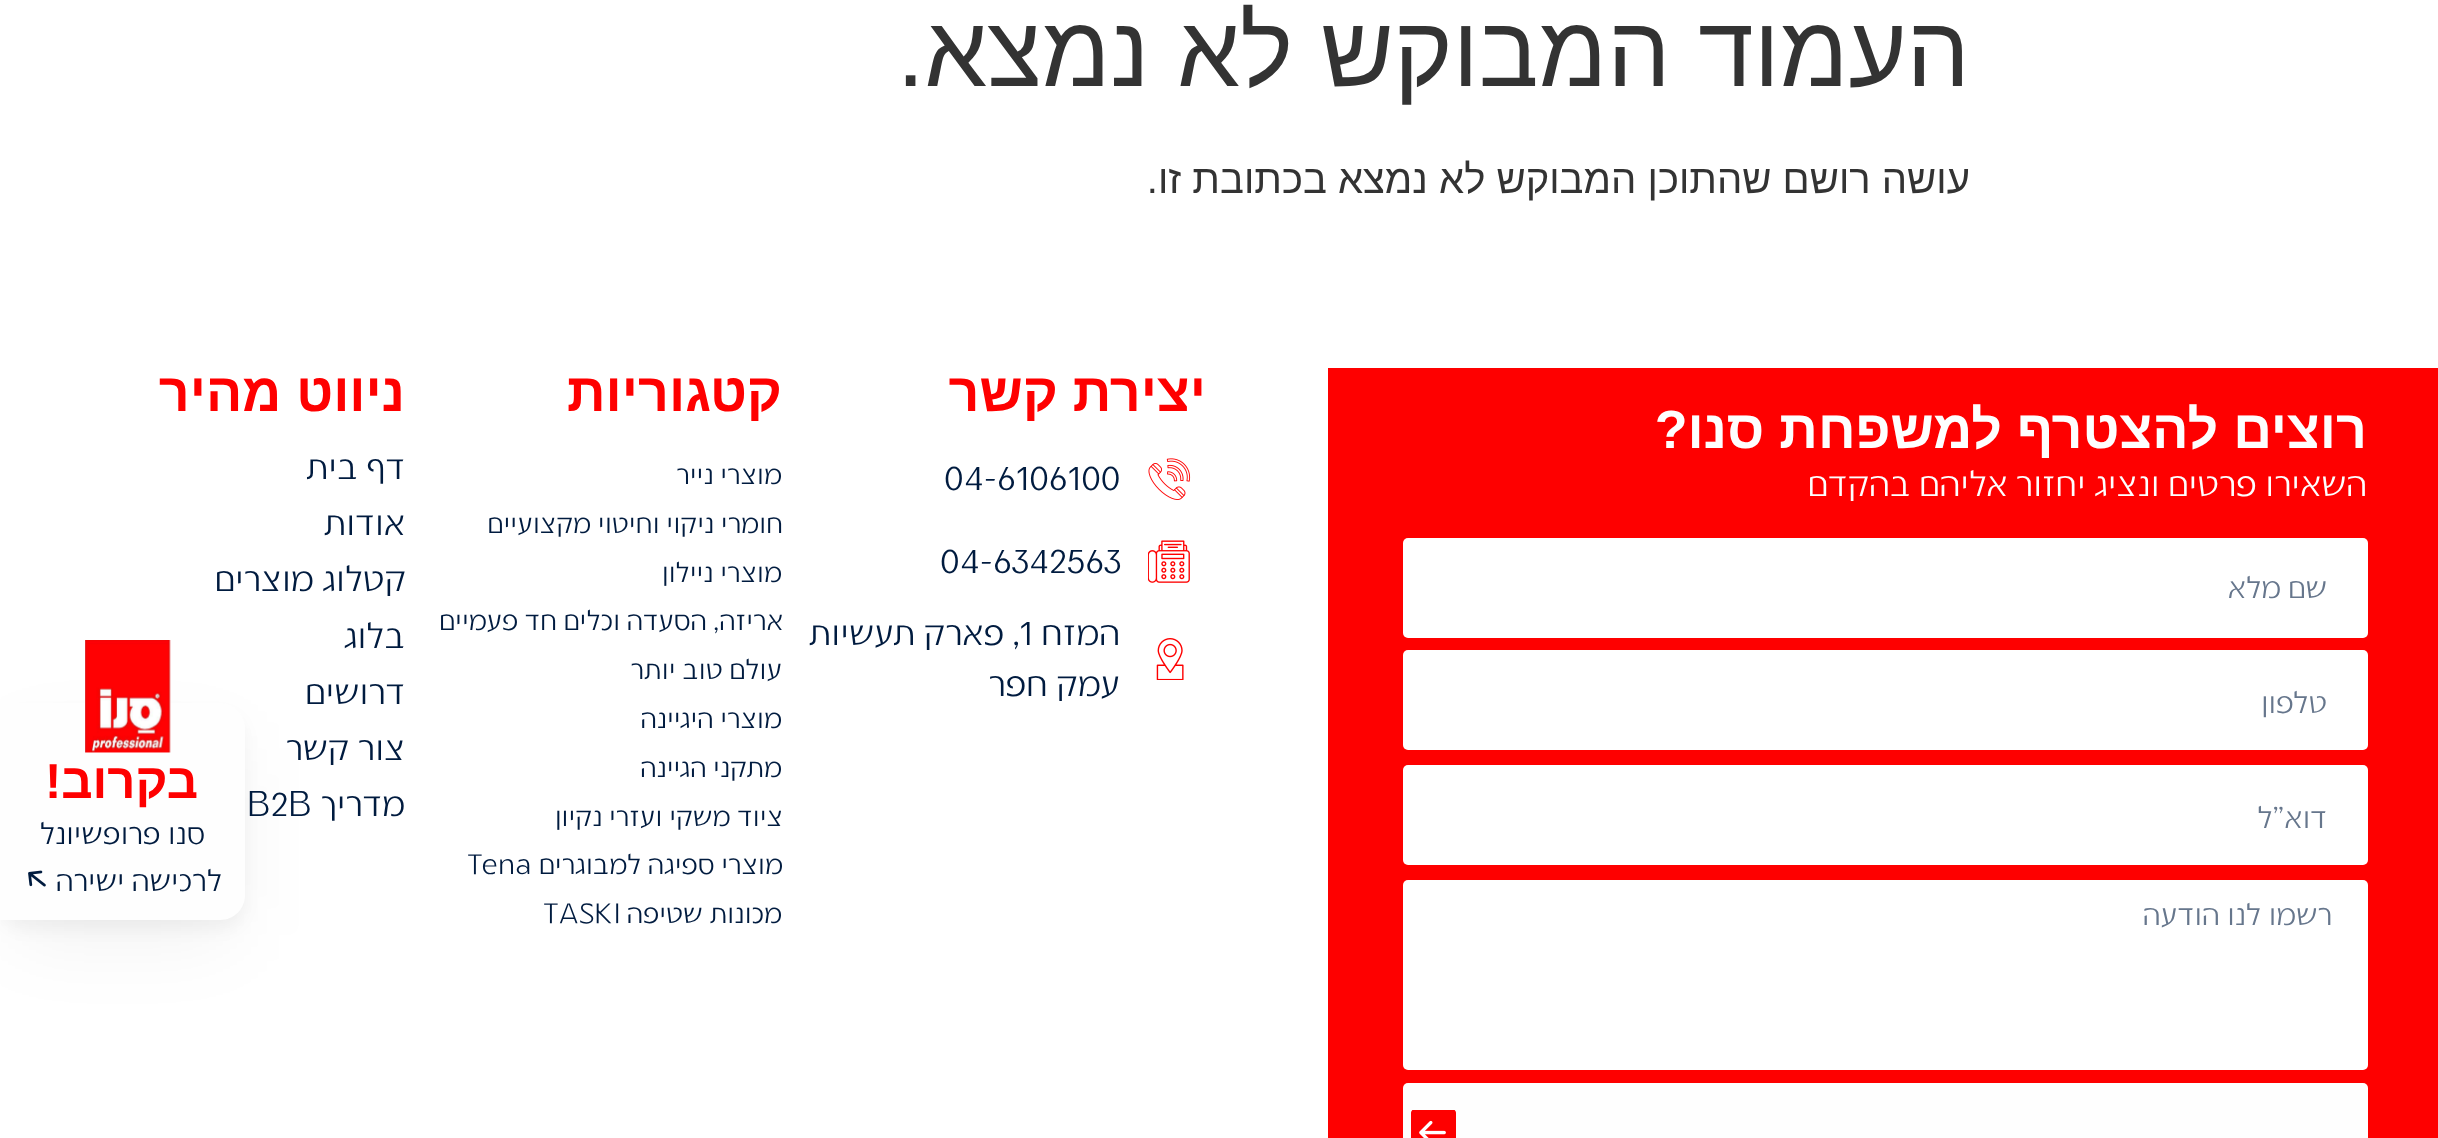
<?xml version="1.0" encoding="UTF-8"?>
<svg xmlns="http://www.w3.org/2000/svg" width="2438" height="1138">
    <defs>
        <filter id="blur1" x="-50%" y="-200%" width="200%" height="500%"><feGaussianBlur stdDeviation="7.5"/></filter>
        <filter id="blur2" x="-50%" y="-200%" width="200%" height="500%"><feGaussianBlur stdDeviation="40"/></filter>
    </defs>
    <rect width="100%" height="100%" fill="#FFFFFF"/>
    <text x="1970" y="86" font-family="Liberation Sans" font-size="100" direction="rtl" fill="#333333">העמוד המבוקש לא נמצא.</text>
    <text x="1970" y="193" font-family="Liberation Sans" font-size="40" direction="rtl" fill="#333333">עושה רושם שהתוכן המבוקש לא נמצא בכתובת זו.</text>
    <rect x="1328" y="368" width="1110" height="770" fill="#FE0000"/>
    <text x="2367" y="448" font-family="Liberation Sans" font-size="53.75" font-weight="700" direction="rtl" fill="#FEFEFE">רוצים להצטרף למשפחת סנו?</text>
    <text x="2367" y="496" font-family="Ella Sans" font-size="34.2" font-weight="100" direction="rtl" fill="#FEFEFE">השאירו פרטים ונציג יחזור אליהם בהקדם</text>
    <rect x="1403" y="538" width="965" height="100" rx="5" fill="#FFFFFF"/>
    <text x="2327" y="598" font-family="Ella Sans" font-size="29.25" font-weight="100" direction="rtl" fill="#66768C">שם מלא</text>
    <rect x="1403" y="650" width="965" height="100" rx="5" fill="#FFFFFF"/>
    <text x="2327" y="713" font-family="Ella Sans" font-size="29.25" font-weight="100" direction="rtl" fill="#66768C">טלפון</text>
    <rect x="1403" y="765" width="965" height="100" rx="5" fill="#FFFFFF"/>
    <text x="2327" y="828" font-family="Ella Sans" font-size="29.25" font-weight="100" direction="rtl" fill="#66768C">דוא"ל</text>
    <rect x="1403" y="880" width="965" height="190" rx="5" fill="#FFFFFF"/>
    <text x="2332" y="925" font-family="Ella Sans" font-size="29.25" font-weight="100" direction="rtl" fill="#66768C">רשמו לנו הודעה</text>
    <rect x="1403" y="1083" width="965" height="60" rx="5" fill="#FEFEFE"/>
    <image x="1411" y="1110" width="45" height="28" href="img_01.png"/>
    <text x="1206" y="411" font-family="Liberation Sans" font-size="53.75" font-weight="700" direction="rtl" fill="#FE0000">יצירת קשר</text>
    <image x="1148" y="458" width="43" height="42" href="img_02.png"/>
    <text x="944" y="490" font-family="Ella Sans" font-size="34.2" font-weight="100" fill="#001B3F">04-6106100</text>
    <image x="1148" y="540" width="42" height="43" href="img_03.png"/>
    <text x="940" y="573" font-family="Ella Sans" font-size="34.2" font-weight="100" fill="#001B3F">04-6342563</text>
    <image x="1156" y="638" width="28" height="42" href="img_04.png"/>
    <text x="1120" y="645" font-family="Ella Sans" font-size="34.2" font-weight="100" direction="rtl" fill="#001B3F">המזח</text>
    <text x="1019" y="645" font-family="Ella Sans" font-size="34.2" font-weight="100" fill="#001B3F">1</text>
    <text x="1020" y="645" font-family="Ella Sans" font-size="34.2" font-weight="100" direction="rtl" fill="#001B3F">, פארק תעשיות</text>
    <text x="1120" y="696" font-family="Ella Sans" font-size="34.2" font-weight="100" direction="rtl" fill="#001B3F">עמק חפר</text>
    <text x="782" y="411" font-family="Liberation Sans" font-size="53.75" font-weight="700" direction="rtl" fill="#FE0000">קטגוריות</text>
    <text x="782" y="484" font-family="Ella Sans" font-size="26.8" font-weight="100" direction="rtl" fill="#001B3F">מוצרי נייר</text>
    <text x="783" y="533" font-family="Ella Sans" font-size="26.8" font-weight="100" direction="rtl" fill="#001B3F">חומרי ניקוי וחיטוי מקצועיים</text>
    <text x="782" y="582" font-family="Ella Sans" font-size="26.8" font-weight="100" direction="rtl" fill="#001B3F">מוצרי ניילון</text>
    <text x="783" y="630" font-family="Ella Sans" font-size="26.8" font-weight="100" direction="rtl" fill="#001B3F">אריזה, הסעדה וכלים חד פעמיים</text>
    <text font-family="Ella Sans" font-size="26.8" font-weight="100" direction="rtl" fill="#001B3F">
        <tspan x="782" y="679">עולם טוב יותר</tspan>
        <tspan x="782" y="728">מוצרי היגיינה</tspan>
        <tspan x="782" y="777">מתקני הגיינה</tspan>
    </text>
    <text font-family="Ella Sans" font-size="26.8" font-weight="100" direction="rtl" fill="#001B3F">
        <tspan x="783" y="826">ציוד משקי ועזרי נקיון</tspan>
        <tspan x="783" y="874">מוצרי ספיגה למבוגרים</tspan>
    </text>
    <text x="467" y="874" font-family="Ella Sans" font-size="26.8" font-weight="100" fill="#001B3F">Tena</text>
    <text x="782" y="923" font-family="Ella Sans" font-size="26.8" font-weight="100" direction="rtl" fill="#001B3F">מכונות שטיפה</text>
    <text x="543" y="923" font-family="Ella Sans" font-size="26.8" font-weight="100" fill="#001B3F">TASKI</text>
    <text x="405" y="411" font-family="Liberation Sans" font-size="53.75" font-weight="700" direction="rtl" fill="#FE0000">ניווט מהיר</text>
    <text font-family="Ella Sans" font-size="34.2" font-weight="100" direction="rtl" fill="#001B3F">
        <tspan x="405" y="479">דף בית</tspan>
        <tspan x="405" y="535">אודות</tspan>
    </text>
    <text x="406" y="591" font-family="Ella Sans" font-size="34.2" font-weight="100" direction="rtl" fill="#001B3F">קטלוג מוצרים</text>
    <text font-family="Ella Sans" font-size="34.2" font-weight="100" direction="rtl" fill="#001B3F">
        <tspan x="405" y="648">בלוג</tspan>
        <tspan x="405" y="704">דרושים</tspan>
        <tspan x="405" y="760">צור קשר</tspan>
        <tspan x="405" y="816">מדריך</tspan>
    </text>
    <text x="247" y="816" font-family="Ella Sans" font-size="34.2" font-weight="100" fill="#001B3F">B2B</text>
    <rect x="0" y="713" width="245" height="217" rx="25" fill="#000000" fill-opacity="0.04" filter="url(#blur1)"/>
    <rect x="15" y="748" width="215" height="187" rx="10" fill="#000000" fill-opacity="0.06" filter="url(#blur2)"/>
    <path d="M 0 703 H 220 C 234 703 245 714 245 728 V 895 C 245 909 234 920 220 920 H 0 Z" fill="#FEFEFE"/>
    <image x="85" y="640" width="86" height="113" href="img_05.png"/>
    <text x="198" y="798" font-family="Liberation Sans" font-size="49" font-weight="700" direction="rtl" fill="#FE0000">בקרוב!</text>
    <text x="205" y="844" font-family="Ella Sans" font-size="29.25" font-weight="100" direction="rtl" fill="#001B3F">סנו פרופשיונל</text>
    <text x="222" y="891" font-family="Ella Sans" font-size="29.25" font-weight="100" direction="rtl" fill="#001B3F">לרכישה ישירה</text>
    <image x="28" y="870" width="18" height="17" href="img_06.png"/>
</svg>
